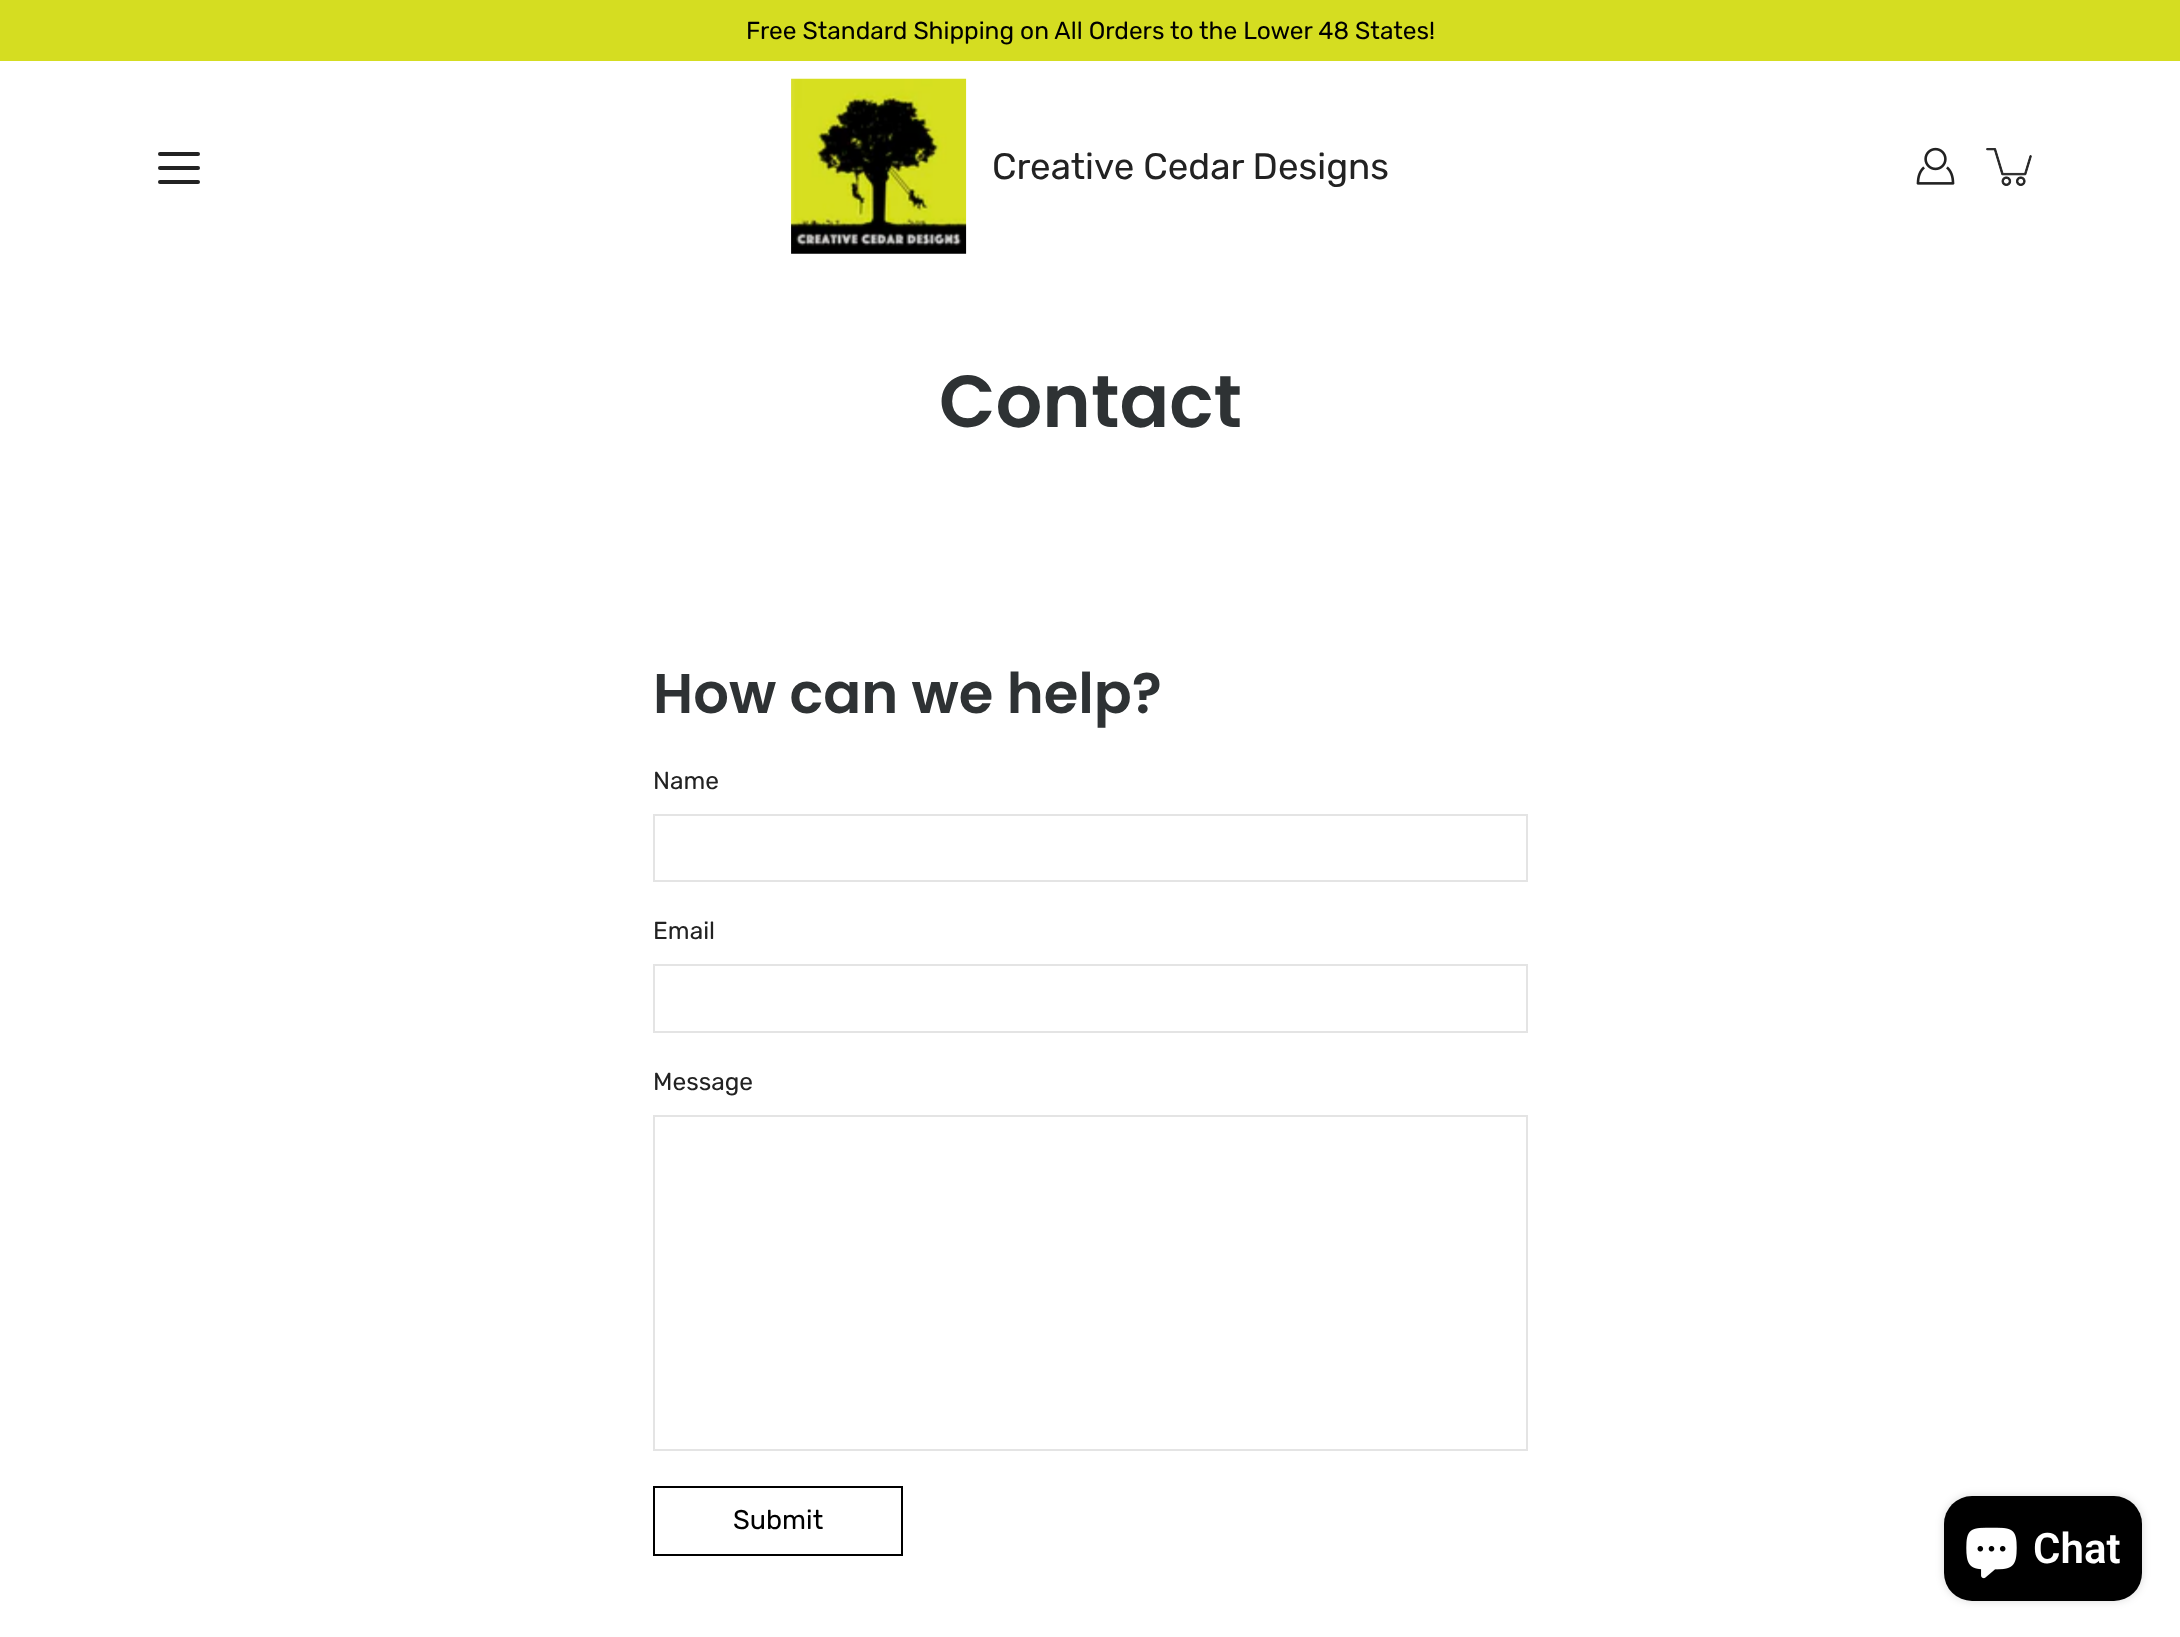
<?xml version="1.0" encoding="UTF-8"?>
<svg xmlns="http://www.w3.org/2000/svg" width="2180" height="1637">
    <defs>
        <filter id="blur1" x="-50%" y="-200%" width="200%" height="500%"><feGaussianBlur stdDeviation="4.5"/></filter>
    </defs>
    <rect width="100%" height="100%" fill="#FFFFFF"/>
    <rect x="0" y="0" width="2180" height="61" fill="#D5DD21"/>
    <text x="746" y="39" font-family="Rubik" font-size="24.5" fill="#000000">Free Standard Shipping on All Orders to the Lower 48 States!</text>
    <rect x="158" y="166" width="42" height="4" rx="2" fill="#222222"/>
    <rect x="158" y="152" width="42" height="4" rx="2" fill="#222222"/>
    <rect x="158" y="180" width="42" height="4" rx="2" fill="#222222"/>
    <image x="1916" y="147" width="39" height="38" href="img_01.png"/>
    <image x="1986" y="148" width="46" height="38" href="img_02.png"/>
    <image x="791" y="78" width="176" height="176" href="img_03.png"/>
    <text x="992" y="179" font-family="Rubik" font-size="36.75" fill="#222222">Creative Cedar Designs</text>
    <text x="939" y="427" font-family="Poppins" font-size="73.5" font-weight="600" fill="#2E3234">Contact</text>
    <text x="653" y="713" font-family="Poppins" font-size="56" font-weight="600" fill="#2E3234">How can we help?</text>
    <text x="653" y="789" font-family="Rubik" font-size="24.5" fill="#222222">Name</text>
    <rect x="654" y="815" width="873" height="66" fill="none" stroke="#E4E4E4" stroke-width="2"/>
    <text x="653" y="939" font-family="Rubik" font-size="24.5" fill="#222222">Email</text>
    <rect x="654" y="965" width="873" height="67" fill="none" stroke="#E4E4E4" stroke-width="2"/>
    <text x="653" y="1090" font-family="Rubik" font-size="24.5" fill="#222222">Message</text>
    <rect x="654" y="1116" width="873" height="334" fill="none" stroke="#E4E4E4" stroke-width="2"/>
    <rect x="654" y="1487" width="248" height="68" fill="none" stroke="#000000" stroke-width="2"/>
    <text x="733" y="1529" font-family="Rubik" font-size="27" fill="#000000">Submit</text>
    <rect x="1944" y="1496" width="198" height="105" rx="28" fill="#000000" fill-opacity="0.15" filter="url(#blur1)"/>
    <rect x="1944" y="1496" width="198" height="105" rx="28" fill="#000000"/>
    <image x="1966" y="1527" width="51" height="52" href="img_04.png"/>
    <text x="2033" y="1563" font-family="Roboto" font-size="42" font-weight="600" fill="#FFFFFF">Chat</text>
</svg>
